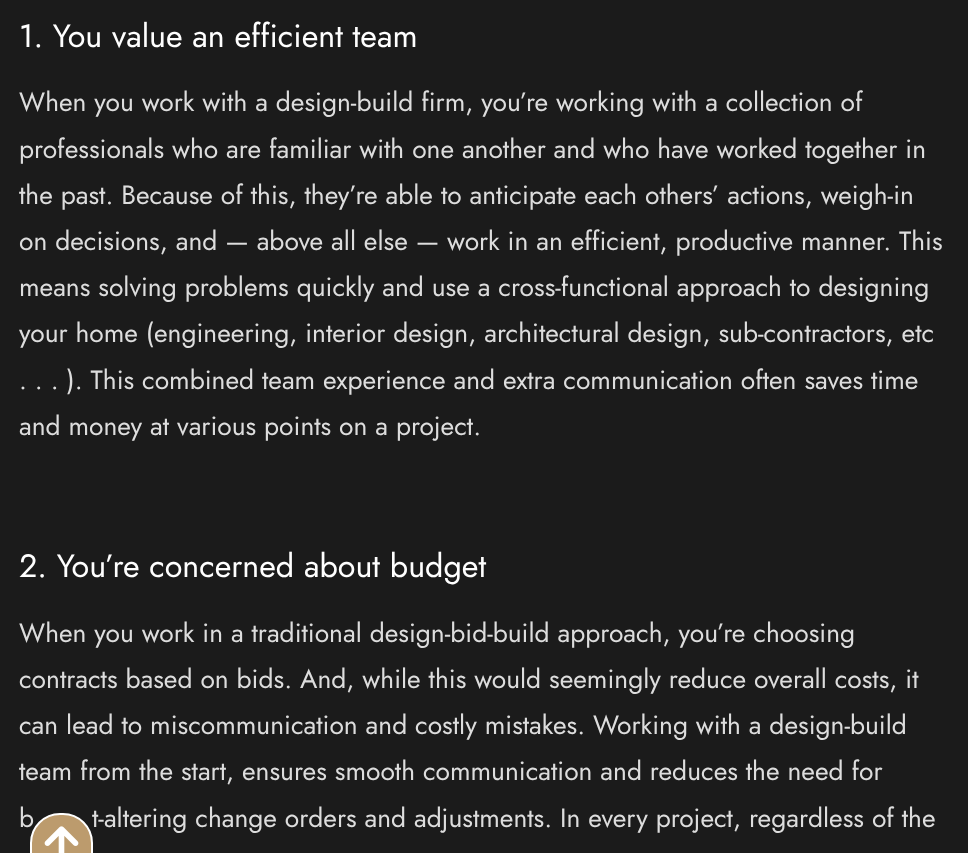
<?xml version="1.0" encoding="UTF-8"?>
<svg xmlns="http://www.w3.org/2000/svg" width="968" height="853">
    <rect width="100%" height="100%" fill="#1B1B1B"/>
    <text x="19" y="47" font-family="Jost" font-size="32.25" fill="#FFFFFF">1. You value an efficient team</text>
    <text font-family="Jost" font-size="26.4" fill="#DDDDDD">
        <tspan x="19" y="111">When you work with a design-build firm, you’re working with a collection of</tspan>
        <tspan x="19" y="158">professionals who are familiar with one another and who have worked together in</tspan>
        <tspan x="19" y="204">the past. Because of this, they’re able to anticipate each others’ actions, weigh-in</tspan>
        <tspan x="19" y="250">on decisions, and — above all else — work in an efficient, productive manner. This</tspan>
        <tspan x="19" y="296">means solving problems quickly and use a cross-functional approach to designing</tspan>
        <tspan x="19" y="342">your home (engineering, interior design, architectural design, sub-contractors, etc</tspan>
        <tspan x="19" y="389">. . . ). This combined team experience and extra communication often saves time</tspan>
        <tspan x="19" y="435">and money at various points on a project.</tspan>
    </text>
    <text x="19" y="577" font-family="Jost" font-size="32.25" fill="#FFFFFF">2. You’re concerned about budget</text>
    <text font-family="Jost" font-size="26.4" fill="#DDDDDD">
        <tspan x="19" y="642">When you work in a traditional design-bid-build approach, you’re choosing</tspan>
        <tspan x="19" y="688">contracts based on bids. And, while this would seemingly reduce overall costs, it</tspan>
        <tspan x="19" y="734">can lead to miscommunication and costly mistakes. Working with a design-build</tspan>
        <tspan x="19" y="780">team from the start, ensures smooth communication and reduces the need for</tspan>
        <tspan x="19" y="827">b</tspan>
    </text>
    <text x="92" y="827" font-family="Jost" font-size="26.4" fill="#DDDDDD">t-altering change orders and adjustments. In every project, regardless of the</text>
    <path d="M 60 814 H 63 C 79 814 92 827 92 843 V 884 H 31 V 843 C 31 827 44 814 60 814 Z" fill="#BC9B6D" stroke="#FFFFFF" stroke-width="2"/>
    <image x="44" y="826" width="35" height="27" href="img_01.png"/>
</svg>
